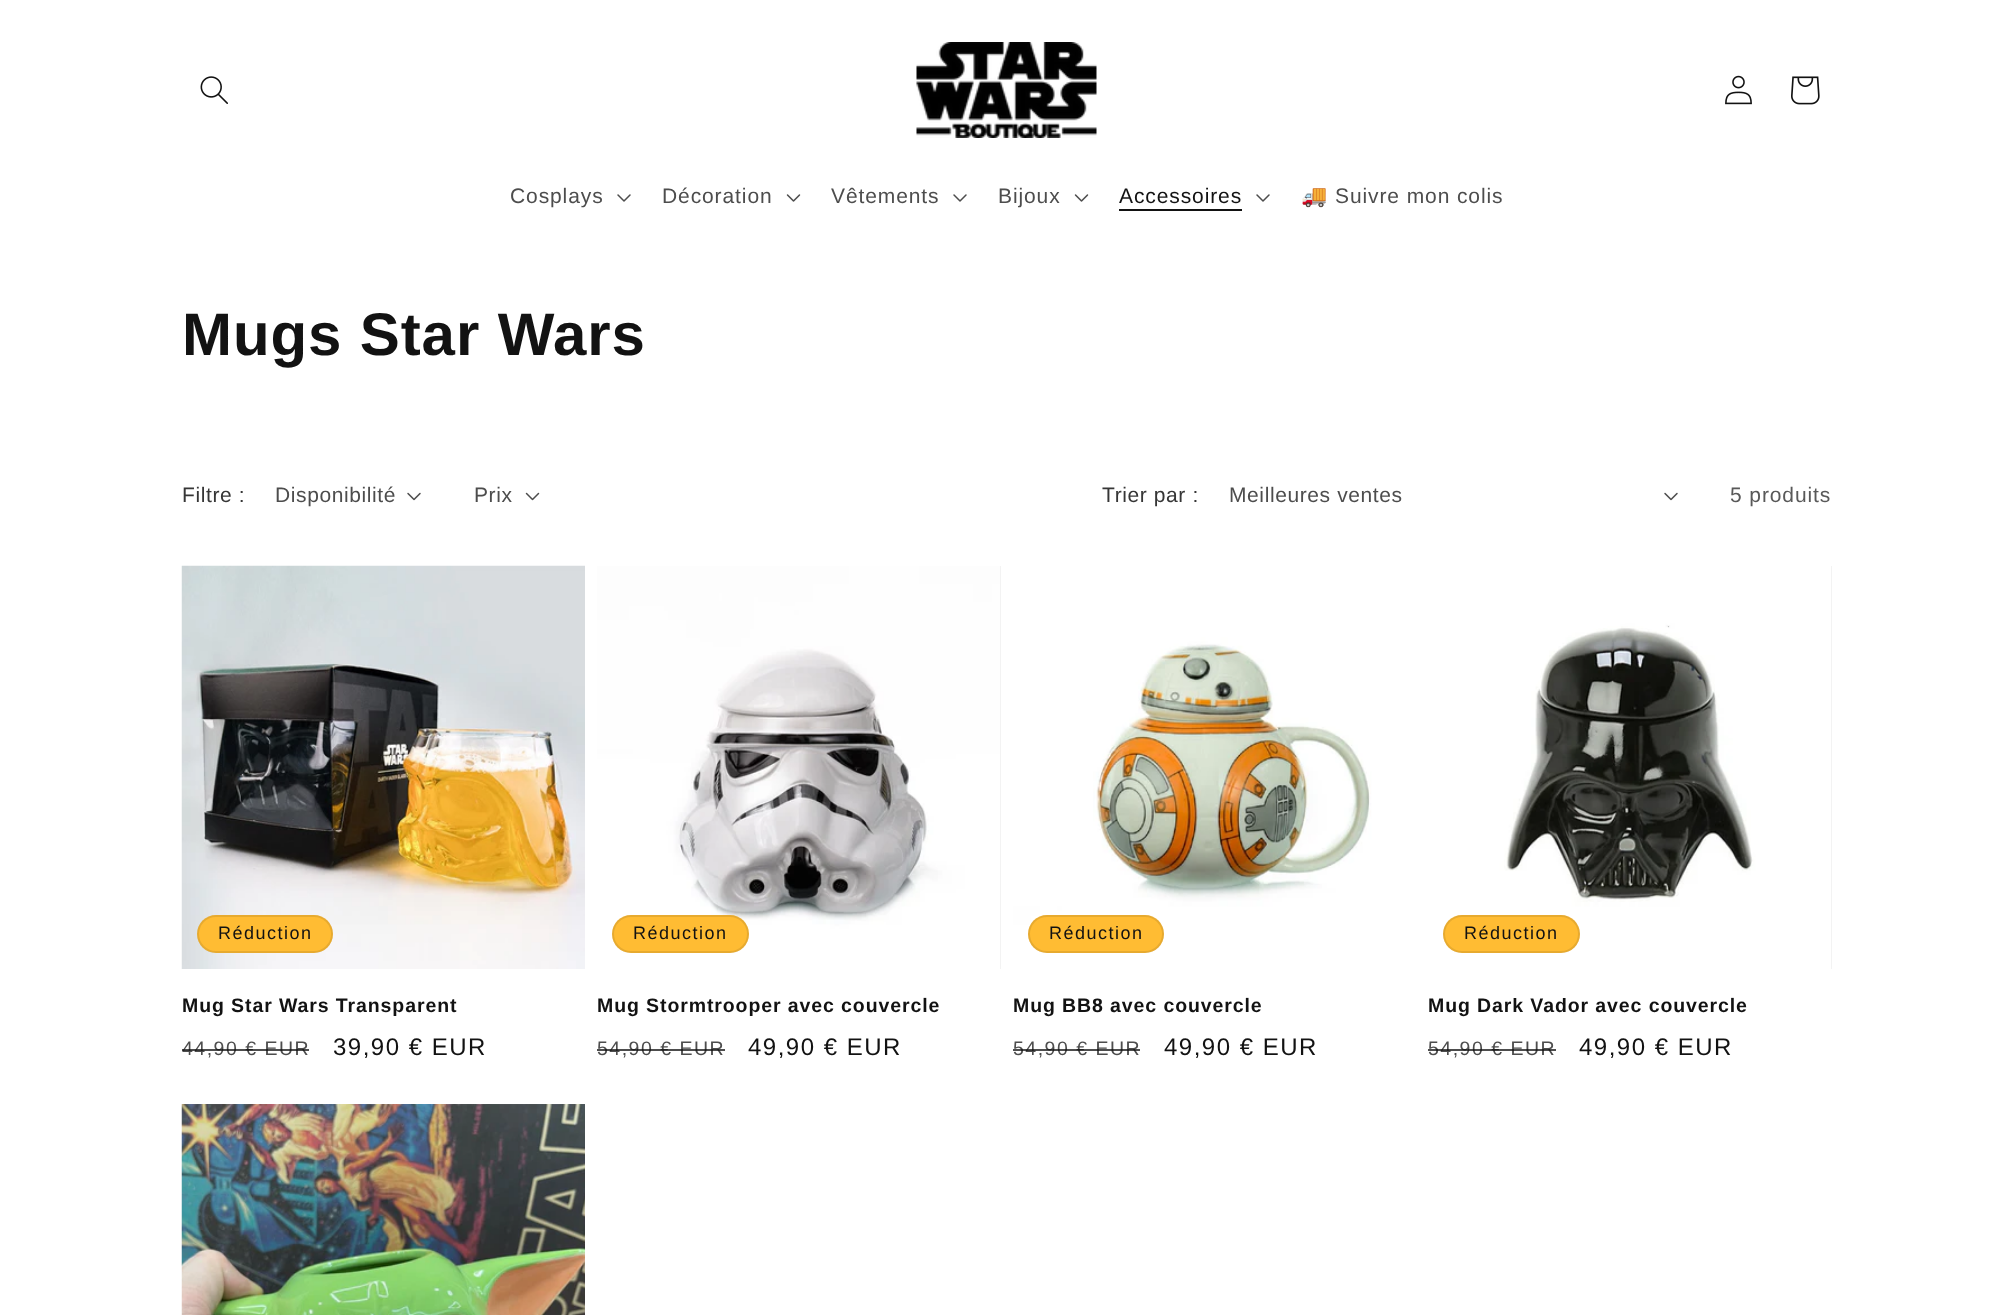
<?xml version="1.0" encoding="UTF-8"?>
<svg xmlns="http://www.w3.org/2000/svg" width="2012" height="1315">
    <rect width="100%" height="100%" fill="#FFFFFF"/>
    <image x="200" y="76" width="28" height="28" href="img_01.png"/>
    <image x="916" y="42" width="181" height="96" href="img_02.png"/>
    <image x="1725" y="75" width="27" height="30" href="img_03.png"/>
    <image x="1791" y="76" width="29" height="29" href="img_04.png"/>
    <text x="510" y="203" font-family="Arimo" font-size="21" letter-spacing="0.9" fill="#4D4D4D">Cosplays</text>
    <image x="617" y="194" width="14" height="8" href="img_05.png"/>
    <text x="662" y="203" font-family="Arimo" font-size="21" letter-spacing="0.9" fill="#4D4D4D">Décoration</text>
    <image x="786" y="194" width="15" height="8" href="img_06.png"/>
    <text x="831" y="203" font-family="Arimo" font-size="21" letter-spacing="0.9" fill="#4D4D4D">Vêtements</text>
    <image x="953" y="194" width="14" height="8" href="img_05.png"/>
    <text x="998" y="203" font-family="Arimo" font-size="21" letter-spacing="0.9" fill="#4D4D4D">Bijoux</text>
    <image x="1074" y="194" width="15" height="8" href="img_06.png"/>
    <text x="1119" y="203" font-family="Arimo" font-size="21" letter-spacing="0.9" fill="#121212">Accessoires</text>
    <rect x="1119" y="209" width="123" height="2" fill="#121212"/>
    <image x="1256" y="194" width="14" height="8" href="img_05.png"/>
    <text x="1301" y="203" font-family="Noto Color Emoji" font-size="21" letter-spacing="0.9" fill="#4D4D4D">🚚</text>
    <text x="1335" y="203" font-family="Arimo" font-size="21" letter-spacing="0.9" fill="#4D4D4D">Suivre mon colis</text>
    <text x="182" y="355" font-family="Arimo" font-size="60" font-weight="700" letter-spacing="0.9" fill="#121212">Mugs Star Wars</text>
    <text x="182" y="502" font-family="Arimo" font-size="21" letter-spacing="0.6" fill="#363636">Filtre :</text>
    <text x="275" y="502" font-family="Arimo" font-size="21" letter-spacing="0.6" fill="#4D4D4D">Disponibilité</text>
    <image x="407" y="492" width="14" height="9" href="img_07.png"/>
    <text x="474" y="502" font-family="Arimo" font-size="21" letter-spacing="0.6" fill="#4D4D4D">Prix</text>
    <image x="525" y="492" width="15" height="9" href="img_08.png"/>
    <text x="1102" y="502" font-family="Arimo" font-size="21" letter-spacing="0.6" fill="#363636">Trier par :</text>
    <text x="1229" y="502" font-family="Arimo" font-size="21" letter-spacing="0.6" fill="#4D4D4D">Meilleures ventes</text>
    <image x="1664" y="492" width="14" height="9" href="img_07.png"/>
    <text x="1730" y="502" font-family="Arimo" font-size="21" letter-spacing="0.9" fill="#595959">5 produits</text>
    <image x="181" y="565" width="404" height="404" href="img_09.png"/>
    <rect x="197" y="915" width="136" height="38" rx="19" fill="#FFBC33"/>
    <rect x="198" y="916" width="134" height="36" rx="18" fill="none" stroke="#121212" stroke-opacity="0.1" stroke-width="2"/>
    <text x="218" y="939" font-family="Arimo" font-size="18" letter-spacing="1.5" fill="#121212">Réduction</text>
    <text x="182" y="1012" font-family="Arimo" font-size="19.5" font-weight="700" letter-spacing="0.9" fill="#121212">Mug Star Wars Transparent</text>
    <text x="182" y="1055" font-family="Arimo" font-size="19.5" letter-spacing="1.5" fill="#4D4D4D">44,90 € EUR</text>
    <rect x="182" y="1049" width="127" height="2" fill="#121212" fill-opacity="0.75"/>
    <text x="333" y="1055" font-family="Arimo" font-size="24" letter-spacing="1.5" fill="#121212">39,90 € EUR</text>
    <rect x="1000" y="566" width="1" height="403" fill="#F3F3F3"/>
    <image x="597" y="566" width="403" height="403" href="img_10.png"/>
    <rect x="612" y="915" width="137" height="38" rx="19" fill="#FFBC33"/>
    <rect x="613" y="916" width="135" height="36" rx="18" fill="none" stroke="#121212" stroke-opacity="0.1" stroke-width="2"/>
    <text x="633" y="939" font-family="Arimo" font-size="18" letter-spacing="1.5" fill="#121212">Réduction</text>
    <text x="597" y="1012" font-family="Arimo" font-size="19.5" font-weight="700" letter-spacing="0.9" fill="#121212">Mug Stormtrooper avec couvercle</text>
    <text x="597" y="1055" font-family="Arimo" font-size="19.5" letter-spacing="1.5" fill="#4D4D4D">54,90 € EUR</text>
    <rect x="597" y="1049" width="128" height="2" fill="#121212" fill-opacity="0.75"/>
    <text x="748" y="1055" font-family="Arimo" font-size="24" letter-spacing="1.5" fill="#121212">49,90 € EUR</text>
    <image x="1013" y="566" width="403" height="403" href="img_11.png"/>
    <rect x="1028" y="915" width="136" height="38" rx="19" fill="#FFBC33"/>
    <rect x="1029" y="916" width="134" height="36" rx="18" fill="none" stroke="#121212" stroke-opacity="0.1" stroke-width="2"/>
    <text x="1049" y="939" font-family="Arimo" font-size="18" letter-spacing="1.5" fill="#121212">Réduction</text>
    <text x="1013" y="1012" font-family="Arimo" font-size="19.5" font-weight="700" letter-spacing="0.9" fill="#121212">Mug BB8 avec couvercle</text>
    <text x="1013" y="1055" font-family="Arimo" font-size="19.5" letter-spacing="1.5" fill="#4D4D4D">54,90 € EUR</text>
    <rect x="1013" y="1049" width="127" height="2" fill="#121212" fill-opacity="0.75"/>
    <text x="1164" y="1055" font-family="Arimo" font-size="24" letter-spacing="1.5" fill="#121212">49,90 € EUR</text>
    <rect x="1831" y="566" width="1" height="403" fill="#F3F3F3"/>
    <image x="1428" y="566" width="403" height="403" href="img_12.png"/>
    <rect x="1443" y="915" width="137" height="38" rx="19" fill="#FFBC33"/>
    <rect x="1444" y="916" width="135" height="36" rx="18" fill="none" stroke="#121212" stroke-opacity="0.1" stroke-width="2"/>
    <text x="1464" y="939" font-family="Arimo" font-size="18" letter-spacing="1.5" fill="#121212">Réduction</text>
    <text x="1428" y="1012" font-family="Arimo" font-size="19.5" font-weight="700" letter-spacing="0.9" fill="#121212">Mug Dark Vador avec couvercle</text>
    <text x="1428" y="1055" font-family="Arimo" font-size="19.5" letter-spacing="1.5" fill="#4D4D4D">54,90 € EUR</text>
    <rect x="1428" y="1049" width="128" height="2" fill="#121212" fill-opacity="0.75"/>
    <text x="1579" y="1055" font-family="Arimo" font-size="24" letter-spacing="1.5" fill="#121212">49,90 € EUR</text>
    <image x="181" y="1104" width="404" height="211" href="img_13.png"/>
</svg>
